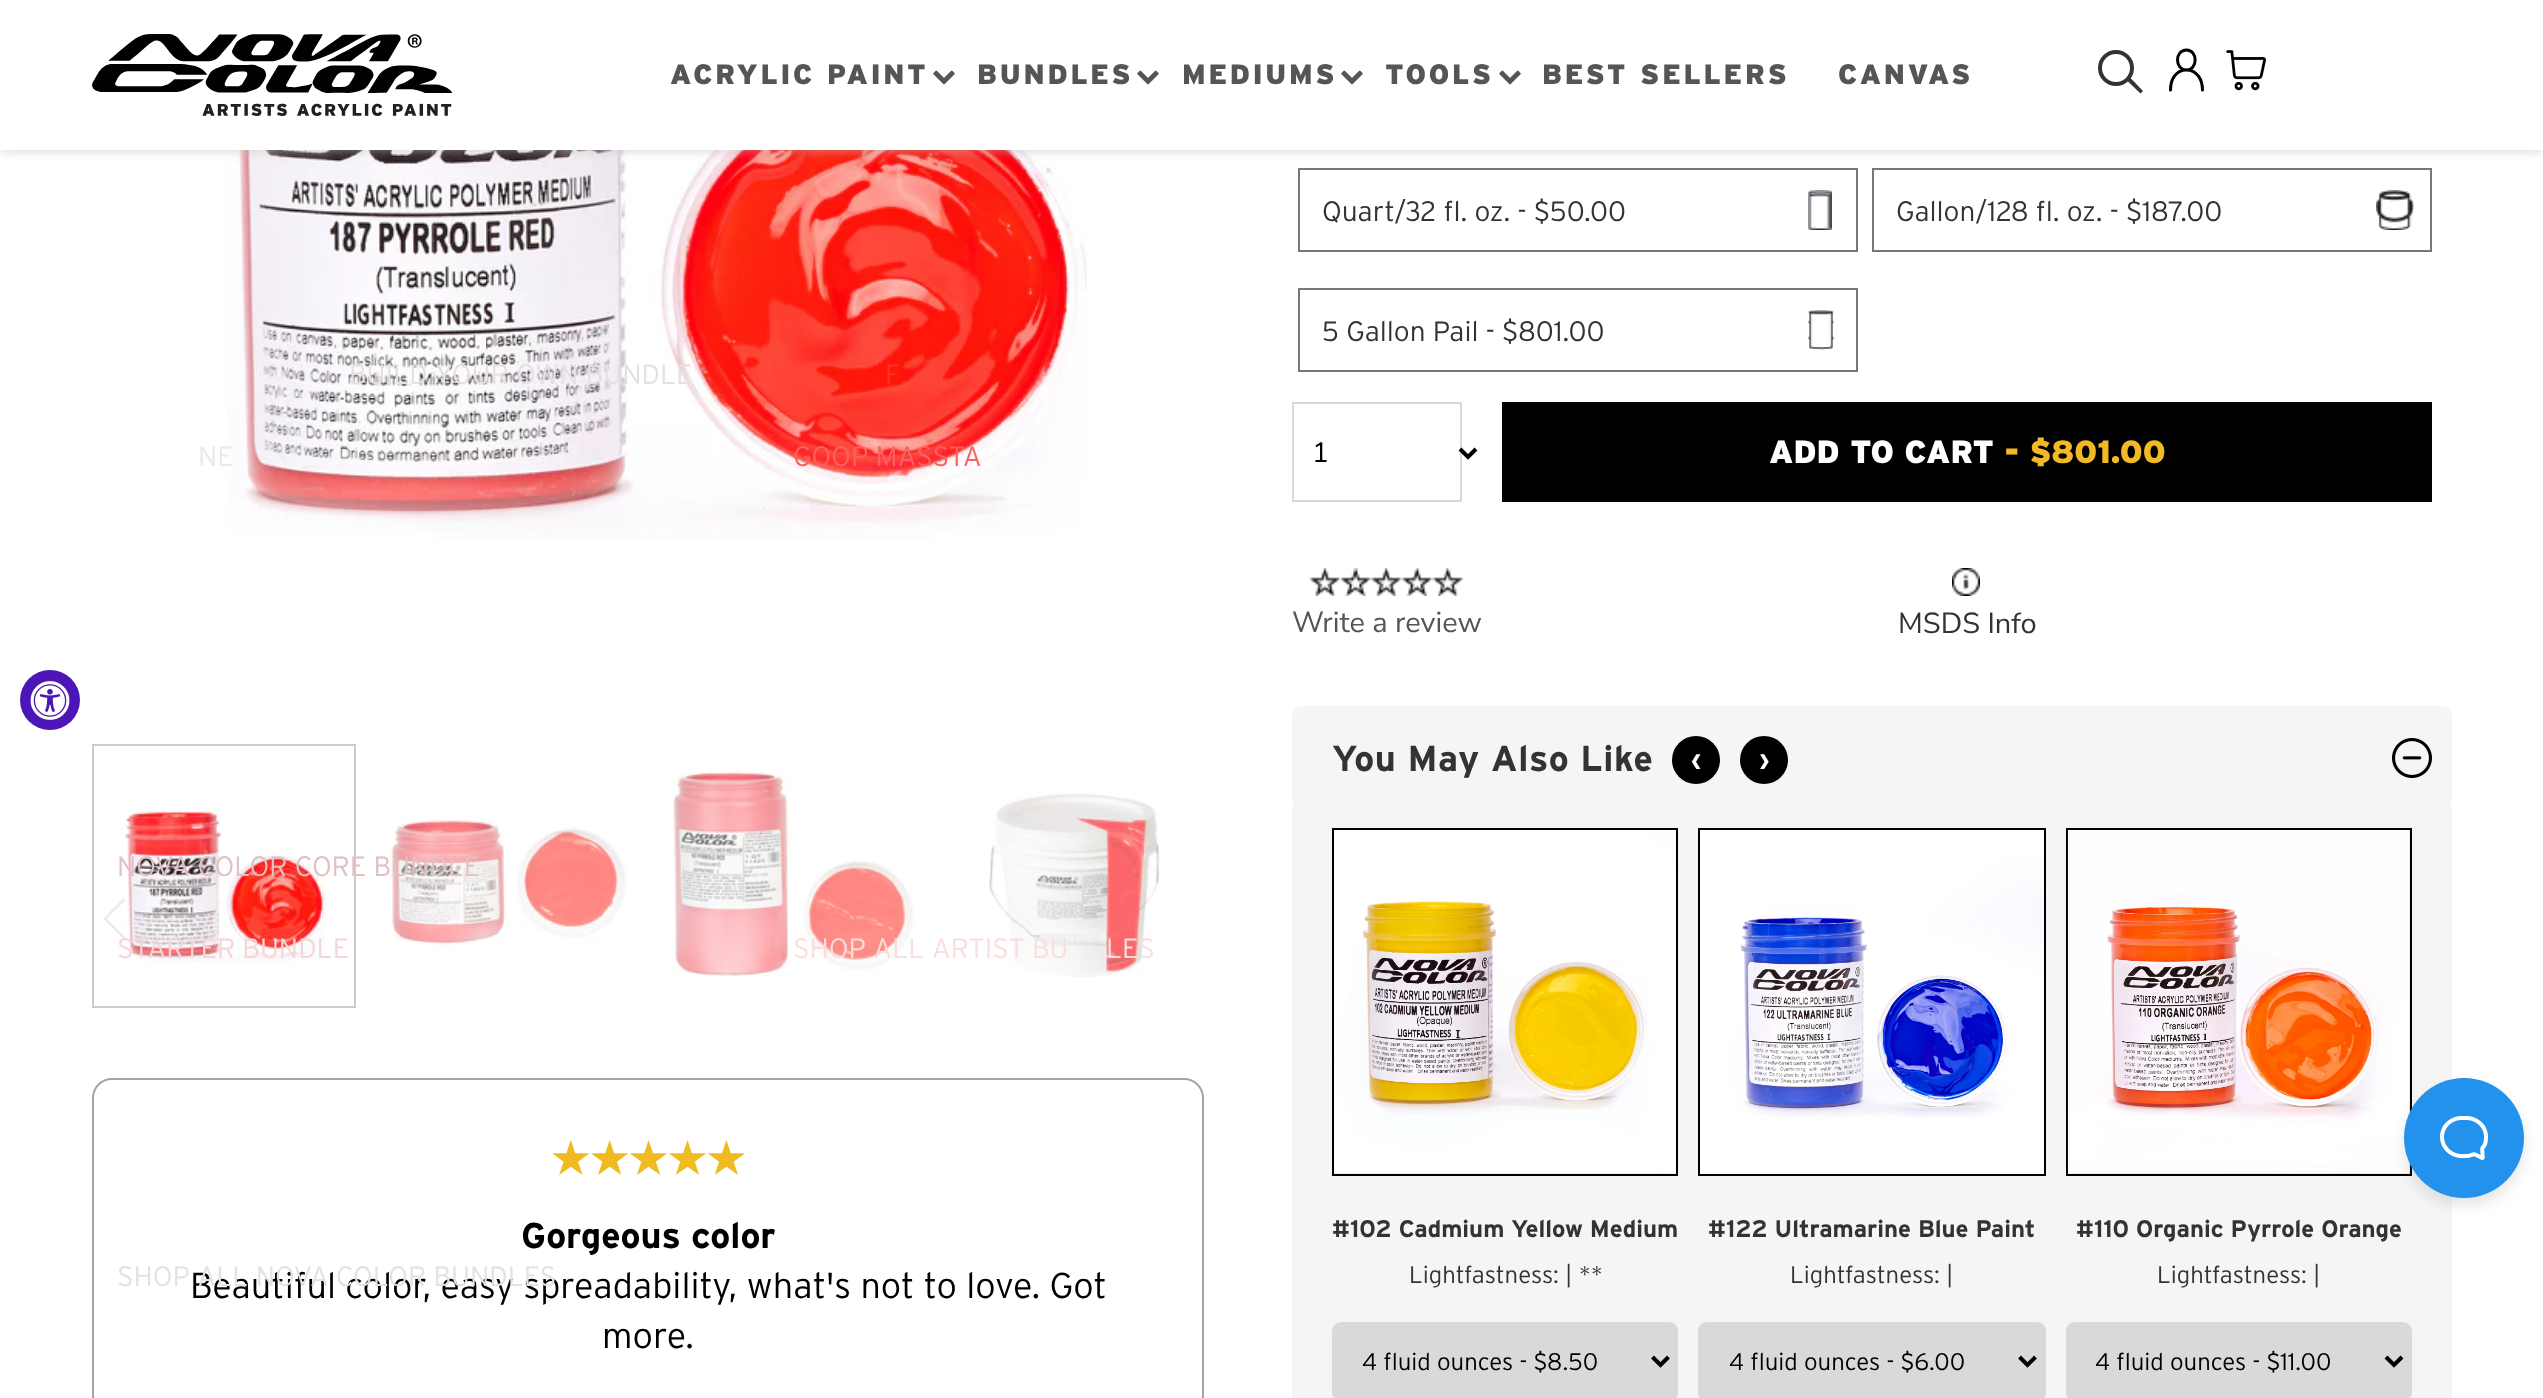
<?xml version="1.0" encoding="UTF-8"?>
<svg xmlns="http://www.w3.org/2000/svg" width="2543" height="1398">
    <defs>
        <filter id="blur1" x="-50%" y="-200%" width="200%" height="500%"><feGaussianBlur stdDeviation="5"/></filter>
        <clipPath id="clip1"><rect x="1292" y="706" width="1160" height="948" rx="10"/></clipPath>
        <filter id="blur2" x="-50%" y="-200%" width="200%" height="500%"><feGaussianBlur stdDeviation="7"/></filter>
    </defs>
    <rect width="100%" height="100%" fill="#FFFFFF"/>
    <circle cx="50" cy="700" r="30" fill="#4C16B6"/>
    <image x="30" y="681" width="40" height="39" href="img_01.png"/>
    <image x="226" y="150" width="861" height="389" href="img_05.png"/>
    <rect x="0" y="2" width="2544" height="150" fill="#BEBEBE" fill-opacity="0.5" filter="url(#blur1)"/>
    <rect x="0" y="0" width="2543" height="150" fill="#FFFFFF"/>
    <image x="92" y="34" width="360" height="82" href="img_02.png"/>
    <circle cx="2116" cy="68" r="16" fill="none" stroke="#333333" stroke-width="4"/>
    <path d="M 2130.5 78 L 2143 91 L 2140.5 93.5 L 2127.5 81 Z" fill="#333333"/>
    <path d="M 2170.5 90 C 2170.5 80.5 2175 70 2186.5 70 M 2186.5 70 C 2197.5 70 2202.5 80.5 2202.5 90 M 2186.5 70 C 2198 70 2198 50 2186.5 50 C 2174.5 50 2174.5 70 2186.5 70 Z" fill="none" stroke="#000000" stroke-width="3" stroke-linecap="round" stroke-linejoin="round"/>
    <image x="2226" y="50" width="40" height="41" href="img_03.png"/>
    <text x="977" y="84" font-family="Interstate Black" font-size="28" font-weight="900" letter-spacing="2.75" fill="#555555">BUNDLES</text>
    <image x="1137" y="70" width="22" height="15" href="img_04.png"/>
    <text x="349" y="384" font-family="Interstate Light" font-size="28" font-weight="300" fill="#E4E0E3">BUILD YOUR OWN BUNDLE</text>
    <text x="198" y="466" font-family="Interstate Light" font-size="28" font-weight="300" fill="#EBE7EA">NE</text>
    <rect x="93" y="745" width="262" height="262" fill="none" stroke="#CCCCCC" stroke-width="2"/>
    <image x="117" y="807" width="209" height="155" href="img_06.png"/>
    <image x="390" y="816" width="237" height="132" href="img_07.png"/>
    <text x="117" y="876" font-family="Interstate Light" font-size="28" font-weight="300" fill="#E1C1C2">NOVA COLOR CORE BUNDLE</text>
    <image x="103" y="898" width="22" height="41" href="img_10.png"/>
    <text x="117" y="958" font-family="Interstate Light" font-size="28" font-weight="300" fill="#F5D6D8">STARTER BUNDLE</text>
    <rect x="93" y="1079" width="1110" height="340" rx="19" fill="none" stroke="#A4A4A4" stroke-width="2"/>
    <text x="190" y="1298" font-family="Interstate Light" font-size="36" font-weight="300" fill="#000000">Beautiful color, easy spreadability, what's not to love. Got</text>
    <text x="117" y="1286" font-family="Interstate Light" font-size="28" font-weight="300" fill="#E4E0E3">SHOP ALL NOVA COLOR BUNDLES</text>
    <text x="885" y="384" font-family="Interstate Light" font-size="28" font-weight="300" fill="#FE3227">F</text>
    <text x="793" y="466" font-family="Interstate Light" font-size="28" font-weight="300" fill="#FC6160">GOOP MASSTA</text>
    <image x="673" y="769" width="243" height="208" href="img_08.png"/>
    <image x="989" y="793" width="171" height="184" href="img_09.png"/>
    <text x="793" y="958" font-family="Interstate Light" font-size="28" font-weight="300" fill="#FADEDD">SHOP ALL ARTIST BU</text>
    <text x="1106" y="958" font-family="Interstate Light" font-size="28" font-weight="300" fill="#FADEDD">LES</text>
    <text x="670" y="84" font-family="Interstate Black" font-size="28" font-weight="900" letter-spacing="2.75" fill="#555555">ACRYLIC PAINT</text>
    <image x="933" y="70" width="22" height="15" href="img_04.png"/>
    <text x="1182" y="84" font-family="Interstate Black" font-size="28" font-weight="900" letter-spacing="2.75" fill="#555555">MEDIUMS</text>
    <image x="1341" y="70" width="22" height="15" href="img_04.png"/>
    <text x="1385" y="84" font-family="Interstate Black" font-size="28" font-weight="900" letter-spacing="2.75" fill="#555555">TOOLS</text>
    <image x="1499" y="70" width="22" height="15" href="img_04.png"/>
    <text x="1542" y="84" font-family="Interstate Black" font-size="28" font-weight="900" letter-spacing="2.75" fill="#555555">BEST SELLERS</text>
    <text x="1838" y="84" font-family="Interstate Black" font-size="28" font-weight="900" letter-spacing="2.75" fill="#555555">CANVAS</text>
    <image x="552" y="1140" width="193" height="35" href="img_11.png"/>
    <text x="521" y="1248" font-family="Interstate" font-size="36" font-weight="700" fill="#000000">Gorgeous color</text>
    <text x="602" y="1348" font-family="Interstate Light" font-size="36" font-weight="300" fill="#000000">more.</text>
    <rect x="1299" y="169" width="558" height="82" fill="none" stroke="#777777" stroke-width="2"/>
    <text x="1322" y="221" font-family="Interstate Light" font-size="28" font-weight="300" fill="#333333">Quart/32 fl. oz. - $50.00</text>
    <image x="1808" y="190" width="24" height="40" href="img_12.png"/>
    <rect x="1873" y="169" width="558" height="82" fill="none" stroke="#777777" stroke-width="2"/>
    <text x="1896" y="221" font-family="Interstate Light" font-size="28" font-weight="300" fill="#333333">Gallon/128 fl. oz. - $187.00</text>
    <image x="2376" y="190" width="38" height="40" href="img_13.png"/>
    <rect x="1299" y="289" width="558" height="82" fill="none" stroke="#777777" stroke-width="2"/>
    <text x="1322" y="341" font-family="Interstate Light" font-size="28" font-weight="300" fill="#333333">5 Gallon Pail - $801.00</text>
    <image x="1808" y="310" width="26" height="40" href="img_14.png"/>
    <rect x="1293" y="403" width="168" height="98" fill="none" stroke="#D9D9D9" stroke-width="2"/>
    <path d="M 1460 449 L 1468 457 L 1476 449" fill="none" stroke="#000000" stroke-width="4"/>
    <text x="1312" y="462" font-family="Nunito Sans" font-size="28" fill="#000000">1</text>
    <rect x="1502" y="402" width="930" height="100" fill="#000000"/>
    <text x="1769" y="463" font-family="Interstate Black" font-size="32" font-weight="900" fill="#FFFFFF">ADD TO CART</text>
    <text x="2004" y="463" font-family="Interstate Black" font-size="32" font-weight="900" fill="#F1BA25">- $801.00</text>
    <image x="1310" y="568" width="154" height="28" href="img_15.png"/>
    <text x="1292" y="632" font-family="Nunito Sans" font-size="29" fill="#555555">Write a review</text>
    <image x="1952" y="568" width="28" height="28" href="img_16.png"/>
    <text x="1898" y="633" font-family="Nunito Sans" font-size="29" fill="#333333">MSDS Info</text>
    <rect x="1292" y="808" width="1160" height="590" fill="#F5F5F5"/>
    <g clip-path="url(#clip1)">
        <rect x="1292" y="702" width="1160" height="110" rx="10" fill="#F5F5F5"/>
    </g>
    <text x="1332" y="771" font-family="Interstate" font-size="36" font-weight="700" letter-spacing="0.6" fill="#333333">You May Also Like</text>
    <image x="2392" y="738" width="40" height="40" href="img_17.png"/>
    <circle cx="1696" cy="760" r="24" fill="#000000"/>
    <text x="1691" y="769" font-family="Interstate" font-size="28" font-weight="700" fill="#FFFFFF">‹</text>
    <circle cx="1764" cy="760" r="24" fill="#000000"/>
    <text x="1759" y="769" font-family="Interstate" font-size="28" font-weight="700" fill="#FFFFFF">›</text>
    <rect x="1332" y="828" width="346" height="348" fill="#000000"/>
    <image x="1334" y="830" width="342" height="344" href="img_18.png"/>
    <text x="1332" y="1237" font-family="Interstate" font-size="24" font-weight="700" fill="#333333">#102 Cadmium Yellow Medium</text>
    <text x="1409" y="1283" font-family="Interstate Light" font-size="24" font-weight="300" fill="#333333">Lightfastness: | **</text>
    <path d="M 1342 1322 C 1336 1322 1332 1326 1332 1332 V 1392 C 1332 1398 1336 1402 1342 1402 H 1668 C 1674 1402 1678 1398 1678 1392 V 1332 C 1678 1326 1674 1322 1668 1322 Z" fill="#D9D9D9"/>
    <path d="M 1652.5 1357 L 1660.5 1365 L 1668.5 1357" fill="none" stroke="#000000" stroke-width="4"/>
    <text x="1362" y="1370" font-family="Interstate Light" font-size="24" font-weight="300" fill="#000000">4 fluid ounces - $8.50</text>
    <rect x="1698" y="828" width="348" height="348" fill="#000000"/>
    <image x="1700" y="830" width="344" height="344" href="img_19.png"/>
    <text x="1708" y="1237" font-family="Interstate" font-size="24" font-weight="700" fill="#333333">#122 Ultramarine Blue Paint</text>
    <text x="1790" y="1283" font-family="Interstate Light" font-size="24" font-weight="300" fill="#333333">Lightfastness: |</text>
    <path d="M 1708 1322 C 1702 1322 1698 1326 1698 1332 V 1392 C 1698 1398 1702 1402 1708 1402 H 2036 C 2042 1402 2046 1398 2046 1392 V 1332 C 2046 1326 2042 1322 2036 1322 Z" fill="#D9D9D9"/>
    <path d="M 2019.5 1357 L 2027.5 1365 L 2035.5 1357" fill="none" stroke="#000000" stroke-width="4"/>
    <text x="1729" y="1370" font-family="Interstate Light" font-size="24" font-weight="300" fill="#000000">4 fluid ounces - $6.00</text>
    <rect x="2066" y="828" width="346" height="348" fill="#000000"/>
    <image x="2067" y="830" width="343" height="344" href="img_20.png"/>
    <text x="2076" y="1237" font-family="Interstate" font-size="24" font-weight="700" fill="#333333">#110 Organic Pyrrole Orange</text>
    <text x="2157" y="1283" font-family="Interstate Light" font-size="24" font-weight="300" fill="#333333">Lightfastness: |</text>
    <path d="M 2076 1322 C 2070 1322 2066 1326 2066 1332 V 1392 C 2066 1398 2070 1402 2076 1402 H 2402 C 2408 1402 2412 1398 2412 1392 V 1332 C 2412 1326 2408 1322 2402 1322 Z" fill="#D9D9D9"/>
    <path d="M 2386 1357 L 2394 1365 L 2402 1357" fill="none" stroke="#000000" stroke-width="4"/>
    <text x="2095" y="1370" font-family="Interstate Light" font-size="24" font-weight="300" fill="#000000">4 fluid ounces - $11.00</text>
    <rect x="2404" y="1086" width="120" height="120" rx="60" fill="#000000" fill-opacity="0.1" filter="url(#blur2)"/>
    <circle cx="2464" cy="1138" r="60" fill="#2392EC"/>
    <image x="2440" y="1116" width="48" height="44" href="img_21.png"/>
</svg>
